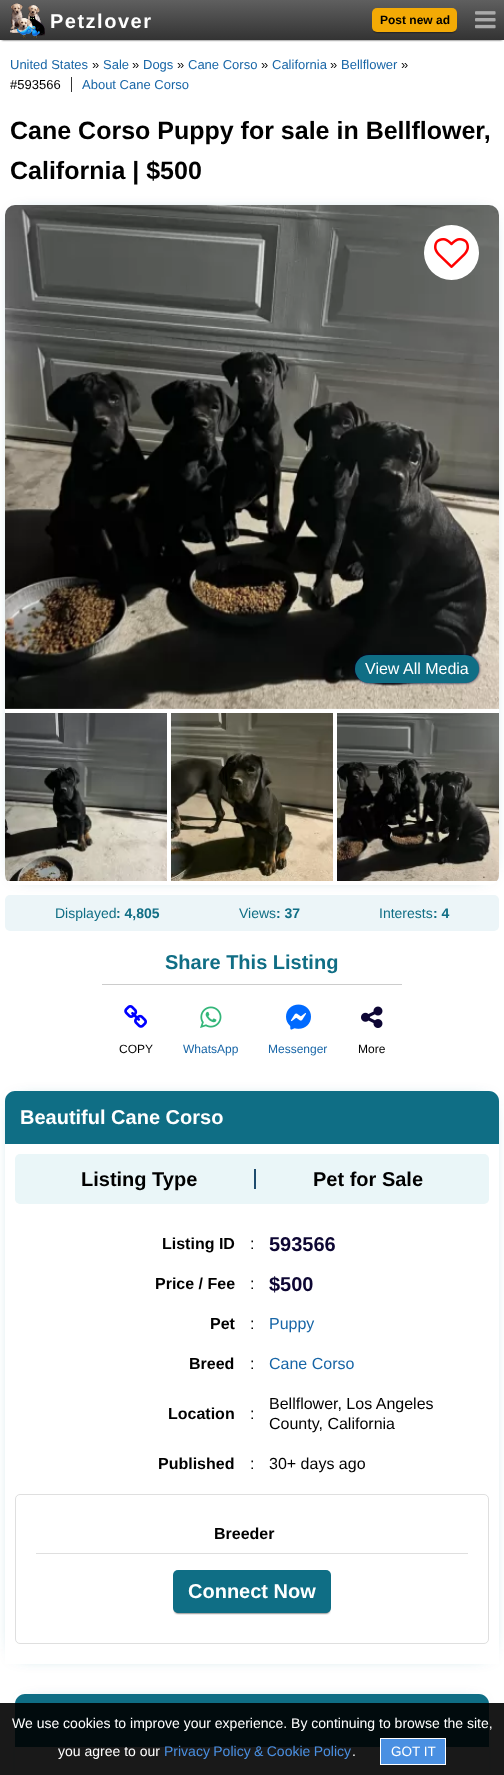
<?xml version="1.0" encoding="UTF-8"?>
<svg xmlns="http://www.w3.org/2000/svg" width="504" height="1775">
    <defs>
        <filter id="blur1" x="-50%" y="-200%" width="200%" height="500%"><feGaussianBlur stdDeviation="1"/></filter>
        <linearGradient id="g1" gradientUnits="userSpaceOnUse" x1="252" y1="0" x2="252" y2="40"><stop offset="0" stop-color="#5F5F5F"/><stop offset="1" stop-color="#333333"/></linearGradient>
        <clipPath id="clip1"><path d="M 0 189 H 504 V 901 H 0 Z M 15 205 H 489 C 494.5 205 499 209.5 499 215 V 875 C 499 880.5 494.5 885 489 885 H 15 C 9.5 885 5 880.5 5 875 V 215 C 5 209.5 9.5 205 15 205 Z" clip-rule="evenodd"/></clipPath>
        <filter id="blur2" x="-50%" y="-200%" width="200%" height="500%"><feGaussianBlur stdDeviation="10"/></filter>
        <filter id="blur3" x="-50%" y="-200%" width="200%" height="500%"><feGaussianBlur stdDeviation="1.5"/></filter>
        <clipPath id="clip2"><path d="M 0 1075 H 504 V 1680 H 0 Z M 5 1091 H 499 V 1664 H 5 Z" clip-rule="evenodd"/></clipPath>
        <clipPath id="clip3"><path d="M 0 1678 H 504 V 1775 H 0 Z M 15 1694 H 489 V 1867 H 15 Z" clip-rule="evenodd"/></clipPath>
    </defs>
    <rect width="100%" height="100%" fill="#FFFFFF"/>
    <rect x="2" y="4" width="500" height="36" fill="#000000" fill-opacity="0.82" filter="url(#blur1)"/>
    <rect x="0" y="0" width="504" height="40" fill="url(#g1)"/>
    <image x="10" y="3" width="35" height="35" href="img_01.png"/>
    <text x="50" y="28" font-family="Liberation Sans" font-size="20" font-weight="700" letter-spacing="1.5" fill="#FFFFFF">Petzlover</text>
    <rect x="374" y="12" width="81" height="20" rx="3" fill="#000000" filter="url(#blur1)"/>
    <rect x="372" y="8" width="85" height="24" rx="5" fill="#F3AA05"/>
    <text x="380" y="24" font-family="Liberation Sans" font-size="12" font-weight="700" fill="#000000">Post new ad</text>
    <image x="475" y="11" width="21" height="18" href="img_02.png"/>
    <text x="10" y="69" font-family="Liberation Sans" font-size="13" fill="#1866A7">United States</text>
    <text x="92" y="69" font-family="Liberation Sans" font-size="13" fill="#000000">»</text>
    <text x="103" y="69" font-family="Liberation Sans" font-size="13" fill="#1866A7">Sale</text>
    <text x="132" y="69" font-family="Liberation Sans" font-size="13" fill="#000000">»</text>
    <text x="143" y="69" font-family="Liberation Sans" font-size="13" fill="#1866A7">Dogs</text>
    <text x="177" y="69" font-family="Liberation Sans" font-size="13" fill="#000000">»</text>
    <text x="188" y="69" font-family="Liberation Sans" font-size="13" fill="#1866A7">Cane Corso</text>
    <text x="261" y="69" font-family="Liberation Sans" font-size="13" fill="#000000">»</text>
    <text x="272" y="69" font-family="Liberation Sans" font-size="13" fill="#1866A7">California</text>
    <text x="330" y="69" font-family="Liberation Sans" font-size="13" fill="#000000">»</text>
    <text x="341" y="69" font-family="Liberation Sans" font-size="13" fill="#1866A7">Bellflower</text>
    <text x="401" y="69" font-family="Liberation Sans" font-size="13" fill="#000000">»</text>
    <text x="10" y="89" font-family="Liberation Sans" font-size="13" fill="#000000">#593566</text>
    <text x="82" y="89" font-family="Liberation Sans" font-size="13" fill="#1866A7">About Cane Corso</text>
    <rect x="71" y="77" width="1" height="15" fill="#333333"/>
    <text font-family="Liberation Sans" font-size="25" font-weight="700" fill="#000000">
        <tspan x="10" y="139">Cane Corso Puppy for sale in Bellflower,</tspan>
        <tspan x="10" y="179">California | $500</tspan>
    </text>
    <rect x="5" y="895" width="494" height="36" rx="5" fill="#ECF5F8"/>
    <g clip-path="url(#clip1)">
        <rect x="20" y="220" width="464" height="650" fill="#0F6E85" filter="url(#blur2)"/>
    </g>
    <image x="5" y="205" width="494" height="504" href="img_03.png"/>
    <circle cx="451.5" cy="252.5" r="27.5" fill="#FFFFFF"/>
    <image x="434" y="238" width="35" height="30" href="img_04.png"/>
    <rect x="355" y="655" width="124" height="28" rx="14" fill="#0D0633" filter="url(#blur3)"/>
    <rect x="355" y="655" width="124" height="28" rx="14" fill="#0F6E85"/>
    <text x="365" y="674" font-family="Liberation Sans" font-size="16" fill="#FFFFFF">View All Media</text>
    <image x="5" y="713" width="162" height="168" href="img_05.png"/>
    <image x="171" y="713" width="162" height="168" href="img_06.png"/>
    <image x="337" y="713" width="162" height="168" href="img_07.png"/>
    <text x="55" y="918" font-family="Liberation Sans" font-size="14" fill="#106E85">Displayed</text>
    <text x="116" y="918" font-family="Liberation Sans" font-size="14" font-weight="700" fill="#106E85">: 4,805</text>
    <text x="239" y="918" font-family="Liberation Sans" font-size="14" fill="#106E85">Views</text>
    <text x="276" y="918" font-family="Liberation Sans" font-size="14" font-weight="700" fill="#106E85">: 37</text>
    <text x="379" y="918" font-family="Liberation Sans" font-size="14" fill="#106E85">Interests</text>
    <text x="433" y="918" font-family="Liberation Sans" font-size="14" font-weight="700" fill="#106E85">: 4</text>
    <rect x="102" y="984" width="300" height="1" fill="#CCCCCC"/>
    <text x="165" y="969" font-family="Liberation Sans" font-size="20" font-weight="700" fill="#106E85">Share This Listing</text>
    <image x="124" y="1005" width="23" height="23" href="img_08.png"/>
    <text x="119" y="1053" font-family="Liberation Sans" font-size="12" fill="#000000">COPY</text>
    <image x="200" y="1006" width="22" height="22" href="img_09.png"/>
    <text x="183" y="1053" font-family="Liberation Sans" font-size="12" fill="#1866A7">WhatsApp</text>
    <image x="286" y="1004" width="25" height="26" href="img_10.png"/>
    <text x="268" y="1053" font-family="Liberation Sans" font-size="12" fill="#1866A7">Messenger</text>
    <image x="361" y="1006" width="22" height="22" href="img_11.png"/>
    <text x="358" y="1053" font-family="Liberation Sans" font-size="12" fill="#000000">More</text>
    <g clip-path="url(#clip2)">
        <rect x="20" y="1106" width="464" height="543" fill="#0F6E85" filter="url(#blur2)"/>
    </g>
    <path d="M 15 1091 H 489 C 494.5 1091 499 1095.5 499 1101 V 1144 H 5 V 1101 C 5 1095.5 9.5 1091 15 1091 Z" fill="#0F6E85"/>
    <text x="20" y="1124" font-family="Liberation Sans" font-size="20" font-weight="700" fill="#FFFFFF">Beautiful Cane Corso</text>
    <rect x="15" y="1154" width="474" height="50" rx="5" fill="#EAF6F8"/>
    <text x="81" y="1186" font-family="Liberation Sans" font-size="20" font-weight="700" fill="#000000">Listing Type</text>
    <rect x="254" y="1169" width="2" height="20" fill="#1E4C6E"/>
    <text x="313" y="1186" font-family="Liberation Sans" font-size="20" font-weight="700" fill="#000000">Pet for Sale</text>
    <text x="162" y="1249" font-family="Liberation Sans" font-size="16" font-weight="700" fill="#000000">Listing ID</text>
    <text x="250" y="1249" font-family="Liberation Sans" font-size="16" fill="#000000">:</text>
    <text x="269" y="1251" font-family="Liberation Sans" font-size="20" font-weight="700" fill="#0D0633">593566</text>
    <text x="155" y="1289" font-family="Liberation Sans" font-size="16" font-weight="700" fill="#000000">Price / Fee</text>
    <text x="250" y="1289" font-family="Liberation Sans" font-size="16" fill="#000000">:</text>
    <text x="269" y="1291" font-family="Liberation Sans" font-size="20" font-weight="700" fill="#0D0633">$500</text>
    <text x="210" y="1329" font-family="Liberation Sans" font-size="16" font-weight="700" fill="#000000">Pet</text>
    <text x="250" y="1329" font-family="Liberation Sans" font-size="16" fill="#000000">:</text>
    <text x="269" y="1329" font-family="Liberation Sans" font-size="16" fill="#1866A7">Puppy</text>
    <text x="189" y="1369" font-family="Liberation Sans" font-size="16" font-weight="700" fill="#000000">Breed</text>
    <text x="250" y="1369" font-family="Liberation Sans" font-size="16" fill="#000000">:</text>
    <text x="269" y="1369" font-family="Liberation Sans" font-size="16" fill="#1866A7">Cane Corso</text>
    <text x="168" y="1419" font-family="Liberation Sans" font-size="16" font-weight="700" fill="#000000">Location</text>
    <text x="250" y="1419" font-family="Liberation Sans" font-size="16" fill="#000000">:</text>
    <text font-family="Liberation Sans" font-size="16" fill="#000000">
        <tspan x="269" y="1409">Bellflower, Los Angeles</tspan>
        <tspan x="269" y="1429">County, California</tspan>
    </text>
    <text x="158" y="1469" font-family="Liberation Sans" font-size="16" font-weight="700" fill="#000000">Published</text>
    <text x="250" y="1469" font-family="Liberation Sans" font-size="16" fill="#000000">:</text>
    <text x="269" y="1469" font-family="Liberation Sans" font-size="16" fill="#000000">30+ days ago</text>
    <rect x="15.5" y="1494.5" width="473" height="149" rx="4.5" fill="none" stroke="#DFDFDF"/>
    <rect x="36" y="1553" width="432" height="1" fill="#DFDFDF"/>
    <text x="214" y="1539" font-family="Liberation Sans" font-size="16" font-weight="700" fill="#000000">Breeder</text>
    <rect x="175" y="1574" width="154" height="39" rx="3" fill="#000000" filter="url(#blur1)"/>
    <rect x="173" y="1570" width="158" height="43" rx="5" fill="#0F6E85"/>
    <text x="188" y="1598" font-family="Liberation Sans" font-size="20" font-weight="700" fill="#FFFFFF">Connect Now</text>
    <g clip-path="url(#clip3)">
        <rect x="30" y="1709" width="444" height="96" fill="#0F6E85" filter="url(#blur2)"/>
    </g>
    <path d="M 25 1694 H 479 C 484.5 1694 489 1698.5 489 1704 V 1747 H 15 V 1704 C 15 1698.5 19.5 1694 25 1694 Z" fill="#0F6E85"/>
    <rect x="0" y="1703" width="504" height="72" fill="#000000" fill-opacity="0.9"/>
    <text x="12" y="1728" font-family="Liberation Sans" font-size="14" fill="#FFFFFF">We use cookies to improve your experience. By continuing to browse the site,</text>
    <text x="58" y="1756" font-family="Liberation Sans" font-size="14" fill="#FFFFFF">you agree to our</text>
    <text x="164" y="1756" word-spacing="-0.5" font-family="Liberation Sans" font-size="14" fill="#4A90E2">Privacy Policy &amp; Cookie Policy</text>
    <text x="352" y="1756" font-family="Liberation Sans" font-size="14" fill="#FFFFFF">.</text>
    <rect x="380.5" y="1738.5" width="65" height="26" fill="#4A90E2" stroke="#FFFFFF"/>
    <text x="391" y="1756" font-family="Liberation Sans" font-size="13.5" fill="#FFFFFF">GOT IT</text>
</svg>
